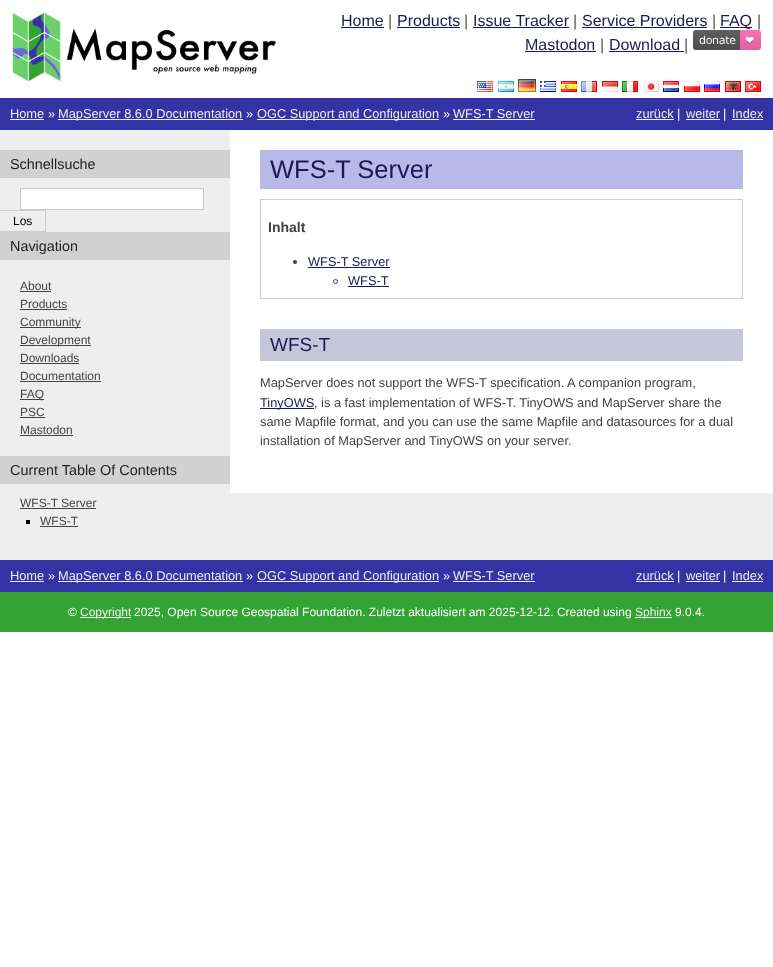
<?xml version="1.0" encoding="UTF-8"?>
<svg xmlns="http://www.w3.org/2000/svg" width="773" height="967">
    <rect width="100%" height="100%" fill="#FFFFFF"/>
    <image x="12" y="12" width="264" height="70" href="img_01.png"/>
    <text x="341" y="26" font-family="Liberation Sans" font-size="16" fill="#1A1A56">Home</text>
    <rect x="341" y="27" width="43" height="1" fill="#1A1A56"/>
    <text x="388" y="26" font-family="Liberation Sans" font-size="16" fill="#555555">|</text>
    <text x="397" y="26" font-family="Liberation Sans" font-size="16" fill="#1A1A56">Products</text>
    <rect x="397" y="27" width="63" height="1" fill="#1A1A56"/>
    <text x="464" y="26" font-family="Liberation Sans" font-size="16" fill="#555555">|</text>
    <text x="473" y="26" font-family="Liberation Sans" font-size="16" fill="#1A1A56">Issue Tracker</text>
    <rect x="473" y="27" width="96" height="1" fill="#1A1A56"/>
    <text x="573" y="26" font-family="Liberation Sans" font-size="16" fill="#555555">|</text>
    <text x="582" y="26" font-family="Liberation Sans" font-size="16" fill="#1A1A56">Service Providers</text>
    <rect x="582" y="27" width="125" height="1" fill="#1A1A56"/>
    <text x="712" y="26" font-family="Liberation Sans" font-size="16" fill="#555555">|</text>
    <rect x="720" y="27" width="32" height="1" fill="#1A1A56"/>
    <text x="720" y="26" font-family="Liberation Sans" font-size="16" fill="#1A1A56">FAQ</text>
    <text x="757" y="26" font-family="Liberation Sans" font-size="16" fill="#555555">|</text>
    <text x="525" y="50" font-family="Liberation Sans" font-size="16" fill="#1A1A56">Mastodon</text>
    <rect x="525" y="51" width="71" height="1" fill="#1A1A56"/>
    <text x="600" y="50" font-family="Liberation Sans" font-size="16" fill="#555555">|</text>
    <text x="609" y="50" font-family="Liberation Sans" font-size="16" fill="#1A1A56">Download</text>
    <rect x="609" y="51" width="75" height="1" fill="#1A1A56"/>
    <text x="684" y="50" font-family="Liberation Sans" font-size="16" fill="#555555">|</text>
    <image x="693" y="30" width="68" height="20" href="img_02.png"/>
    <image x="477" y="81" width="16" height="11" href="img_03.png"/>
    <image x="498" y="81" width="16" height="11" href="img_04.png"/>
    <image x="518" y="79" width="18" height="13" href="img_05.png"/>
    <image x="540" y="81" width="16" height="11" href="img_06.png"/>
    <image x="561" y="81" width="16" height="11" href="img_07.png"/>
    <image x="581" y="81" width="16" height="11" href="img_08.png"/>
    <image x="602" y="81" width="16" height="11" href="img_09.png"/>
    <image x="622" y="81" width="16" height="11" href="img_10.png"/>
    <image x="643" y="81" width="16" height="11" href="img_11.png"/>
    <image x="663" y="81" width="16" height="11" href="img_12.png"/>
    <image x="684" y="81" width="16" height="11" href="img_13.png"/>
    <image x="704" y="81" width="16" height="11" href="img_14.png"/>
    <image x="725" y="81" width="16" height="11" href="img_15.png"/>
    <image x="745" y="81" width="16" height="11" href="img_16.png"/>
    <rect x="0" y="98" width="773" height="32" fill="#3333A4"/>
    <text x="10" y="118" font-family="Liberation Sans" font-size="12.8" fill="#EEEEEE">Home</text>
    <rect x="10" y="119" width="34" height="1" fill="#EEEEEE"/>
    <text x="48" y="118" font-family="Liberation Sans" font-size="12.8" fill="#FFFFFF">»</text>
    <rect x="58" y="119" width="185" height="1" fill="#EEEEEE"/>
    <text x="58" y="118" font-family="Liberation Sans" font-size="12.8" fill="#EEEEEE">MapServer 8.6.0 Documentation</text>
    <text x="246" y="118" font-family="Liberation Sans" font-size="12.8" fill="#FFFFFF">»</text>
    <rect x="257" y="119" width="182" height="1" fill="#EEEEEE"/>
    <text x="257" y="118" font-family="Liberation Sans" font-size="12.8" fill="#EEEEEE">OGC Support and Configuration</text>
    <text x="443" y="118" font-family="Liberation Sans" font-size="12.8" fill="#FFFFFF">»</text>
    <text x="453" y="118" font-family="Liberation Sans" font-size="12.8" fill="#EEEEEE">WFS-T Server</text>
    <rect x="453" y="119" width="82" height="1" fill="#EEEEEE"/>
    <text x="636" y="118" font-family="Liberation Sans" font-size="12.8" fill="#EEEEEE">zurück</text>
    <rect x="636" y="119" width="38" height="1" fill="#EEEEEE"/>
    <text x="677" y="118" font-family="Liberation Sans" font-size="12.8" fill="#FFFFFF">|</text>
    <text x="686" y="118" font-family="Liberation Sans" font-size="12.8" fill="#EEEEEE">weiter</text>
    <rect x="686" y="119" width="34" height="1" fill="#EEEEEE"/>
    <text x="723" y="118" font-family="Liberation Sans" font-size="12.8" fill="#FFFFFF">|</text>
    <text x="732" y="118" font-family="Liberation Sans" font-size="12.8" fill="#EEEEEE">Index</text>
    <rect x="732" y="119" width="31" height="1" fill="#EEEEEE"/>
    <rect x="0" y="130" width="773" height="430" fill="#EEEEEE"/>
    <rect x="0" y="150" width="230" height="28" fill="#D1D1D1"/>
    <text x="10" y="169" font-family="Liberation Sans" font-size="14.4" fill="#222222">Schnellsuche</text>
    <rect x="20.5" y="188.5" width="183" height="21" fill="#FFFFFF" stroke="#CCCCCC"/>
    <rect x="0" y="210" width="46" height="1" fill="#CCCCCC"/>
    <rect x="45" y="210" width="1" height="22" fill="#CCCCCC"/>
    <rect x="0" y="231" width="46" height="1" fill="#CCCCCC"/>
    <text x="13" y="225" font-family="Liberation Sans" font-size="12" fill="#000000">Los</text>
    <rect x="0" y="232" width="230" height="28" fill="#D1D1D1"/>
    <text x="10" y="251" font-family="Liberation Sans" font-size="14.4" fill="#222222">Navigation</text>
    <text x="20" y="290" font-family="Liberation Sans" font-size="12" fill="#444444">About</text>
    <rect x="20" y="291" width="31" height="1" fill="#444444"/>
    <text x="20" y="308" font-family="Liberation Sans" font-size="12" fill="#444444">Products</text>
    <rect x="20" y="309" width="47" height="1" fill="#444444"/>
    <rect x="20" y="327" width="61" height="1" fill="#444444"/>
    <text x="20" y="326" font-family="Liberation Sans" font-size="12" fill="#444444">Community</text>
    <rect x="20" y="345" width="71" height="1" fill="#444444"/>
    <text font-family="Liberation Sans" font-size="12" fill="#444444">
        <tspan x="20" y="344">Development</tspan>
        <tspan x="20" y="362">Downloads</tspan>
    </text>
    <rect x="20" y="363" width="59" height="1" fill="#444444"/>
    <text x="20" y="380" font-family="Liberation Sans" font-size="12" fill="#444444">Documentation</text>
    <rect x="20" y="381" width="81" height="1" fill="#444444"/>
    <rect x="20" y="399" width="24" height="1" fill="#444444"/>
    <text font-family="Liberation Sans" font-size="12" fill="#444444">
        <tspan x="20" y="398">FAQ</tspan>
        <tspan x="20" y="416">PSC</tspan>
    </text>
    <rect x="20" y="417" width="25" height="1" fill="#444444"/>
    <text x="20" y="434" font-family="Liberation Sans" font-size="12" fill="#444444">Mastodon</text>
    <rect x="20" y="435" width="53" height="1" fill="#444444"/>
    <rect x="0" y="456" width="230" height="28" fill="#D1D1D1"/>
    <text x="10" y="475" font-family="Liberation Sans" font-size="14.4" fill="#222222">Current Table Of Contents</text>
    <text x="20" y="507" font-family="Liberation Sans" font-size="12" fill="#444444">WFS-T Server</text>
    <rect x="20" y="508" width="76" height="1" fill="#444444"/>
    <rect x="26" y="520" width="4" height="4" fill="#000000"/>
    <text x="40" y="525" font-family="Liberation Sans" font-size="12" fill="#444444">WFS-T</text>
    <rect x="40" y="526" width="38" height="1" fill="#444444"/>
    <rect x="230" y="130" width="543" height="363" fill="#FFFFFF"/>
    <rect x="260" y="150" width="483" height="39" fill="#B9B9E9"/>
    <text x="270" y="178" font-family="Liberation Sans" font-size="25.5" fill="#1A1A56">WFS-T Server</text>
    <rect x="260.5" y="199.5" width="482" height="99" fill="none" stroke="#CCCCCC"/>
    <text x="268" y="232" font-family="Liberation Sans" font-size="14" font-weight="700" fill="#3E4349">Inhalt</text>
    <circle cx="295" cy="262" r="2" fill="#3E4349"/>
    <text x="308" y="266" font-family="Liberation Sans" font-size="12.8" fill="#1A1A56">WFS-T Server</text>
    <rect x="308" y="267" width="82" height="1" fill="#1A1A56"/>
    <circle cx="335.5" cy="281.5" r="2" fill="none" stroke="#3E4349"/>
    <text x="348" y="285" font-family="Liberation Sans" font-size="12.8" fill="#1A1A56">WFS-T</text>
    <rect x="348" y="286" width="41" height="1" fill="#1A1A56"/>
    <rect x="260" y="329" width="483" height="32" fill="#C6C6DB"/>
    <text x="270" y="351" font-family="Liberation Sans" font-size="19" fill="#1A1A56">WFS-T</text>
    <text x="260" y="387" font-family="Liberation Sans" font-size="12.8" fill="#3E4349">MapServer does not support the WFS-T specification. A companion program,</text>
    <rect x="260" y="408" width="54" height="1" fill="#1A1A56"/>
    <text x="260" y="407" font-family="Liberation Sans" font-size="12.8" fill="#1A1A56">TinyOWS</text>
    <text x="314" y="407" font-family="Liberation Sans" font-size="12.8" fill="#3E4349">, is a fast implementation of WFS-T. TinyOWS and MapServer share the</text>
    <text font-family="Liberation Sans" font-size="12.8" fill="#3E4349">
        <tspan x="260" y="426">same Mapfile format, and you can use the same Mapfile and datasources for a dual</tspan>
        <tspan x="260" y="445">installation of MapServer and TinyOWS on your server.</tspan>
    </text>
    <rect x="0" y="560" width="773" height="32" fill="#3333A4"/>
    <text x="10" y="580" font-family="Liberation Sans" font-size="12.8" fill="#EEEEEE">Home</text>
    <rect x="10" y="581" width="34" height="1" fill="#EEEEEE"/>
    <text x="48" y="580" font-family="Liberation Sans" font-size="12.8" fill="#FFFFFF">»</text>
    <rect x="58" y="581" width="185" height="1" fill="#EEEEEE"/>
    <text x="58" y="580" font-family="Liberation Sans" font-size="12.8" fill="#EEEEEE">MapServer 8.6.0 Documentation</text>
    <text x="246" y="580" font-family="Liberation Sans" font-size="12.8" fill="#FFFFFF">»</text>
    <rect x="257" y="581" width="182" height="1" fill="#EEEEEE"/>
    <text x="257" y="580" font-family="Liberation Sans" font-size="12.8" fill="#EEEEEE">OGC Support and Configuration</text>
    <text x="443" y="580" font-family="Liberation Sans" font-size="12.8" fill="#FFFFFF">»</text>
    <text x="453" y="580" font-family="Liberation Sans" font-size="12.8" fill="#EEEEEE">WFS-T Server</text>
    <rect x="453" y="581" width="82" height="1" fill="#EEEEEE"/>
    <text x="636" y="580" font-family="Liberation Sans" font-size="12.8" fill="#EEEEEE">zurück</text>
    <rect x="636" y="581" width="38" height="1" fill="#EEEEEE"/>
    <text x="677" y="580" font-family="Liberation Sans" font-size="12.8" fill="#FFFFFF">|</text>
    <text x="686" y="580" font-family="Liberation Sans" font-size="12.8" fill="#EEEEEE">weiter</text>
    <rect x="686" y="581" width="34" height="1" fill="#EEEEEE"/>
    <text x="723" y="580" font-family="Liberation Sans" font-size="12.8" fill="#FFFFFF">|</text>
    <text x="732" y="580" font-family="Liberation Sans" font-size="12.8" fill="#EEEEEE">Index</text>
    <rect x="732" y="581" width="31" height="1" fill="#EEEEEE"/>
    <rect x="0" y="592" width="773" height="40" fill="#33A333"/>
    <text x="68" y="616" font-family="Liberation Sans" font-size="12" fill="#FFFFFF">©</text>
    <rect x="80" y="617" width="51" height="1" fill="#EEEEEE"/>
    <text x="80" y="616" font-family="Liberation Sans" font-size="12" fill="#EEEEEE">Copyright</text>
    <text x="134" y="616" font-family="Liberation Sans" font-size="12" fill="#FFFFFF">2025, Open Source Geospatial Foundation. Zuletzt aktualisiert am 2025-12-12. Created using</text>
    <rect x="635" y="617" width="37" height="1" fill="#EEEEEE"/>
    <text x="635" y="616" font-family="Liberation Sans" font-size="12" fill="#EEEEEE">Sphinx</text>
    <text x="675" y="616" font-family="Liberation Sans" font-size="12" fill="#FFFFFF">9.0.4.</text>
</svg>
